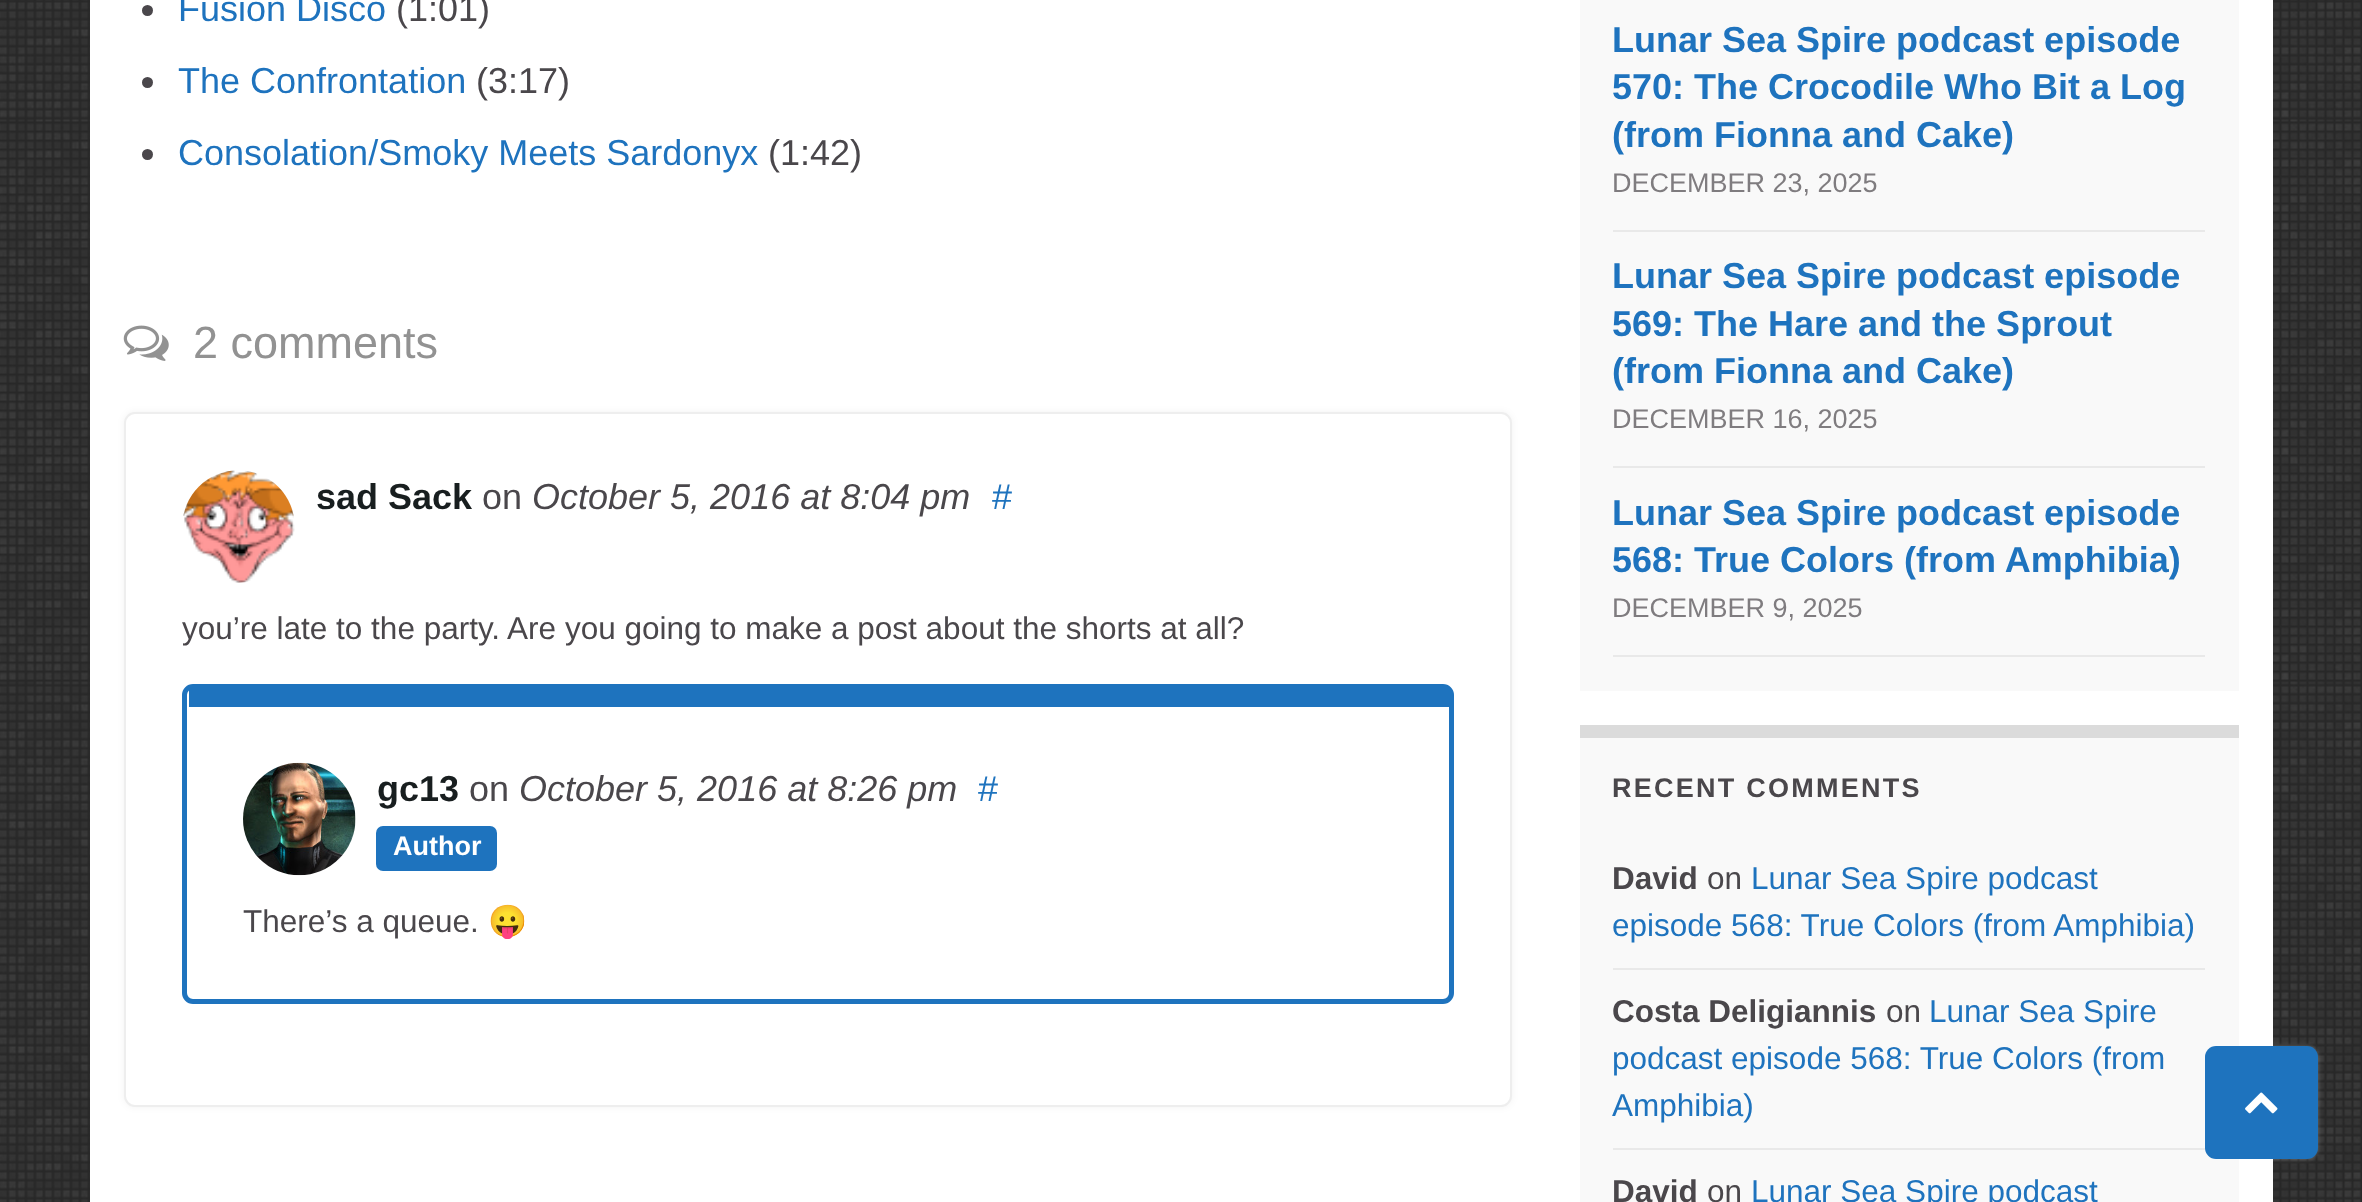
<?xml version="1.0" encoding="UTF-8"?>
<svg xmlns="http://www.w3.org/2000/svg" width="2362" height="1202">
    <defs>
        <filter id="blur1" x="-50%" y="-200%" width="200%" height="500%"><feGaussianBlur stdDeviation="3.5"/></filter>
        <filter id="blur2" x="-50%" y="-200%" width="200%" height="500%"><feGaussianBlur stdDeviation="2"/></filter>
    </defs>
    <rect width="100%" height="100%" fill="#FFFFFF"/>
    <image x="0" y="0" width="2362" height="1202" href="img_01.png"/>
    <rect x="90" y="0" width="2183" height="1202" fill="#FFFFFF"/>
    <circle cx="147.5" cy="10.5" r="5.5" fill="#4A474B"/>
    <text x="178" y="21" font-family="Liberation Sans" font-size="36" fill="#1E73BE">Fusion Disco</text>
    <text x="396" y="21" font-family="Liberation Sans" font-size="36" fill="#4A474B">(1:01)</text>
    <circle cx="147.5" cy="82.5" r="5.5" fill="#4A474B"/>
    <text x="178" y="93" font-family="Liberation Sans" font-size="36" fill="#1E73BE">The Confrontation</text>
    <text x="476" y="93" font-family="Liberation Sans" font-size="36" fill="#4A474B">(3:17)</text>
    <circle cx="147.5" cy="154.5" r="5.5" fill="#4A474B"/>
    <text x="178" y="165" font-family="Liberation Sans" font-size="36" fill="#1E73BE">Consolation/Smoky Meets Sardonyx</text>
    <text x="768" y="165" font-family="Liberation Sans" font-size="36" fill="#4A474B">(1:42)</text>
    <image x="123" y="325" width="46" height="36" href="img_02.png"/>
    <text x="193" y="358" font-family="Liberation Sans" font-size="45" fill="#929292">2 comments</text>
    <rect x="124" y="412" width="1388" height="695" rx="11" fill="#000000" fill-opacity="0.05" filter="url(#blur1)"/>
    <rect x="125" y="413" width="1386" height="693" rx="10" fill="#FFFFFF" stroke="#EEEEEE" stroke-width="2"/>
    <image x="183" y="470" width="112" height="113" href="img_03.png"/>
    <text x="316" y="509" font-family="Liberation Sans" font-size="36" font-weight="700" fill="#181E1F">sad Sack</text>
    <text x="482" y="509" font-family="Liberation Sans" font-size="36" fill="#4A474B">on</text>
    <text x="532" y="509" font-family="Liberation Sans" font-size="36" font-style="italic" fill="#4A474B">October 5, 2016 at 8:04 pm</text>
    <text x="992" y="509" font-family="Liberation Sans" font-size="36" fill="#1E73BE">#</text>
    <text x="182" y="639" font-family="Liberation Sans" font-size="31.5" fill="#4A474B">you’re late to the party. Are you going to make a post about the shorts at all?</text>
    <rect x="184.5" y="686.5" width="1267" height="315" rx="8.5" fill="none" stroke="#1E73BE" stroke-width="5"/>
    <rect x="189" y="689" width="1260" height="18" fill="#1E73BE"/>
    <image x="243" y="762" width="113" height="114" href="img_04.png"/>
    <text x="377" y="801" font-family="Liberation Sans" font-size="36" font-weight="700" fill="#181E1F">gc13</text>
    <text x="469" y="801" font-family="Liberation Sans" font-size="36" fill="#4A474B">on</text>
    <text x="519" y="801" font-family="Liberation Sans" font-size="36" font-style="italic" fill="#4A474B">October 5, 2016 at 8:26 pm</text>
    <rect x="376" y="826" width="121" height="45" rx="7" fill="#1E73BE"/>
    <text x="393" y="855" font-family="Liberation Sans" font-size="27" font-weight="700" fill="#FFFFFF">Author</text>
    <text x="978" y="801" font-family="Liberation Sans" font-size="36" fill="#1E73BE">#</text>
    <text x="243" y="932" font-family="Liberation Sans" font-size="31.5" fill="#4A474B">There’s a queue.</text>
    <text x="488" y="932" font-family="Noto Color Emoji" font-size="31.5" fill="#4A474B">😛</text>
    <rect x="1580" y="0" width="659" height="691" fill="#F9F9F9"/>
    <rect x="1613" y="230" width="592" height="2" fill="#E9E9E9"/>
    <text font-family="Liberation Sans" font-size="36" font-weight="700" fill="#1E73BE">
        <tspan x="1612" y="52">Lunar Sea Spire podcast episode</tspan>
        <tspan x="1612" y="99">570: The Crocodile Who Bit a Log</tspan>
        <tspan x="1612" y="147">(from Fionna and Cake)</tspan>
    </text>
    <text x="1612" y="192" font-family="Liberation Sans" font-size="27" fill="#7F7C7F">DECEMBER 23, 2025</text>
    <rect x="1613" y="466" width="592" height="2" fill="#E9E9E9"/>
    <text font-family="Liberation Sans" font-size="36" font-weight="700" fill="#1E73BE">
        <tspan x="1612" y="288">Lunar Sea Spire podcast episode</tspan>
        <tspan x="1612" y="336">569: The Hare and the Sprout</tspan>
        <tspan x="1612" y="383">(from Fionna and Cake)</tspan>
    </text>
    <text x="1612" y="428" font-family="Liberation Sans" font-size="27" fill="#7F7C7F">DECEMBER 16, 2025</text>
    <rect x="1613" y="655" width="592" height="2" fill="#E9E9E9"/>
    <text font-family="Liberation Sans" font-size="36" font-weight="700" fill="#1E73BE">
        <tspan x="1612" y="525">Lunar Sea Spire podcast episode</tspan>
        <tspan x="1612" y="572">568: True Colors (from Amphibia)</tspan>
    </text>
    <text x="1612" y="617" font-family="Liberation Sans" font-size="27" fill="#7F7C7F">DECEMBER 9, 2025</text>
    <rect x="1580" y="738" width="659" height="464" fill="#F9F9F9"/>
    <rect x="1580" y="725" width="659" height="13" fill="#DBDBDB"/>
    <text x="1612" y="797" font-family="Liberation Sans" font-size="27" font-weight="700" letter-spacing="2.25" fill="#4A474B">RECENT COMMENTS</text>
    <rect x="1613" y="968" width="592" height="2" fill="#E9E9E9"/>
    <text x="1612" y="889" font-family="Liberation Sans" font-size="31.5" font-weight="700" fill="#4A474B">David</text>
    <text x="1707" y="889" font-family="Liberation Sans" font-size="31.5" fill="#4A474B">on</text>
    <text x="1751" y="889" font-family="Liberation Sans" font-size="31.5" fill="#1E73BE">Lunar Sea Spire podcast</text>
    <text x="1612" y="936" font-family="Liberation Sans" font-size="31.5" fill="#1E73BE">episode 568: True Colors (from Amphibia)</text>
    <rect x="1613" y="1148" width="592" height="2" fill="#E9E9E9"/>
    <text x="1612" y="1022" font-family="Liberation Sans" font-size="31.5" font-weight="700" fill="#4A474B">Costa Deligiannis</text>
    <text x="1886" y="1022" font-family="Liberation Sans" font-size="31.5" fill="#4A474B">on</text>
    <text x="1929" y="1022" font-family="Liberation Sans" font-size="31.5" fill="#1E73BE">Lunar Sea Spire</text>
    <text font-family="Liberation Sans" font-size="31.5" fill="#1E73BE">
        <tspan x="1612" y="1069">podcast episode 568: True Colors (from</tspan>
        <tspan x="1612" y="1116">Amphibia)</tspan>
    </text>
    <text x="1612" y="1202" font-family="Liberation Sans" font-size="31.5" font-weight="700" fill="#4A474B">David</text>
    <text x="1707" y="1202" font-family="Liberation Sans" font-size="31.5" fill="#4A474B">on</text>
    <text x="1751" y="1202" font-family="Liberation Sans" font-size="31.5" fill="#1E73BE">Lunar Sea Spire podcast</text>
    <rect x="2205" y="1046" width="113" height="113" rx="11" fill="#FFFFFF" fill-opacity="0.3" filter="url(#blur2)"/>
    <rect x="2205" y="1046" width="113" height="113" rx="11" fill="#1E73BE"/>
    <image x="2245" y="1092" width="33" height="22" href="img_05.png"/>
</svg>
